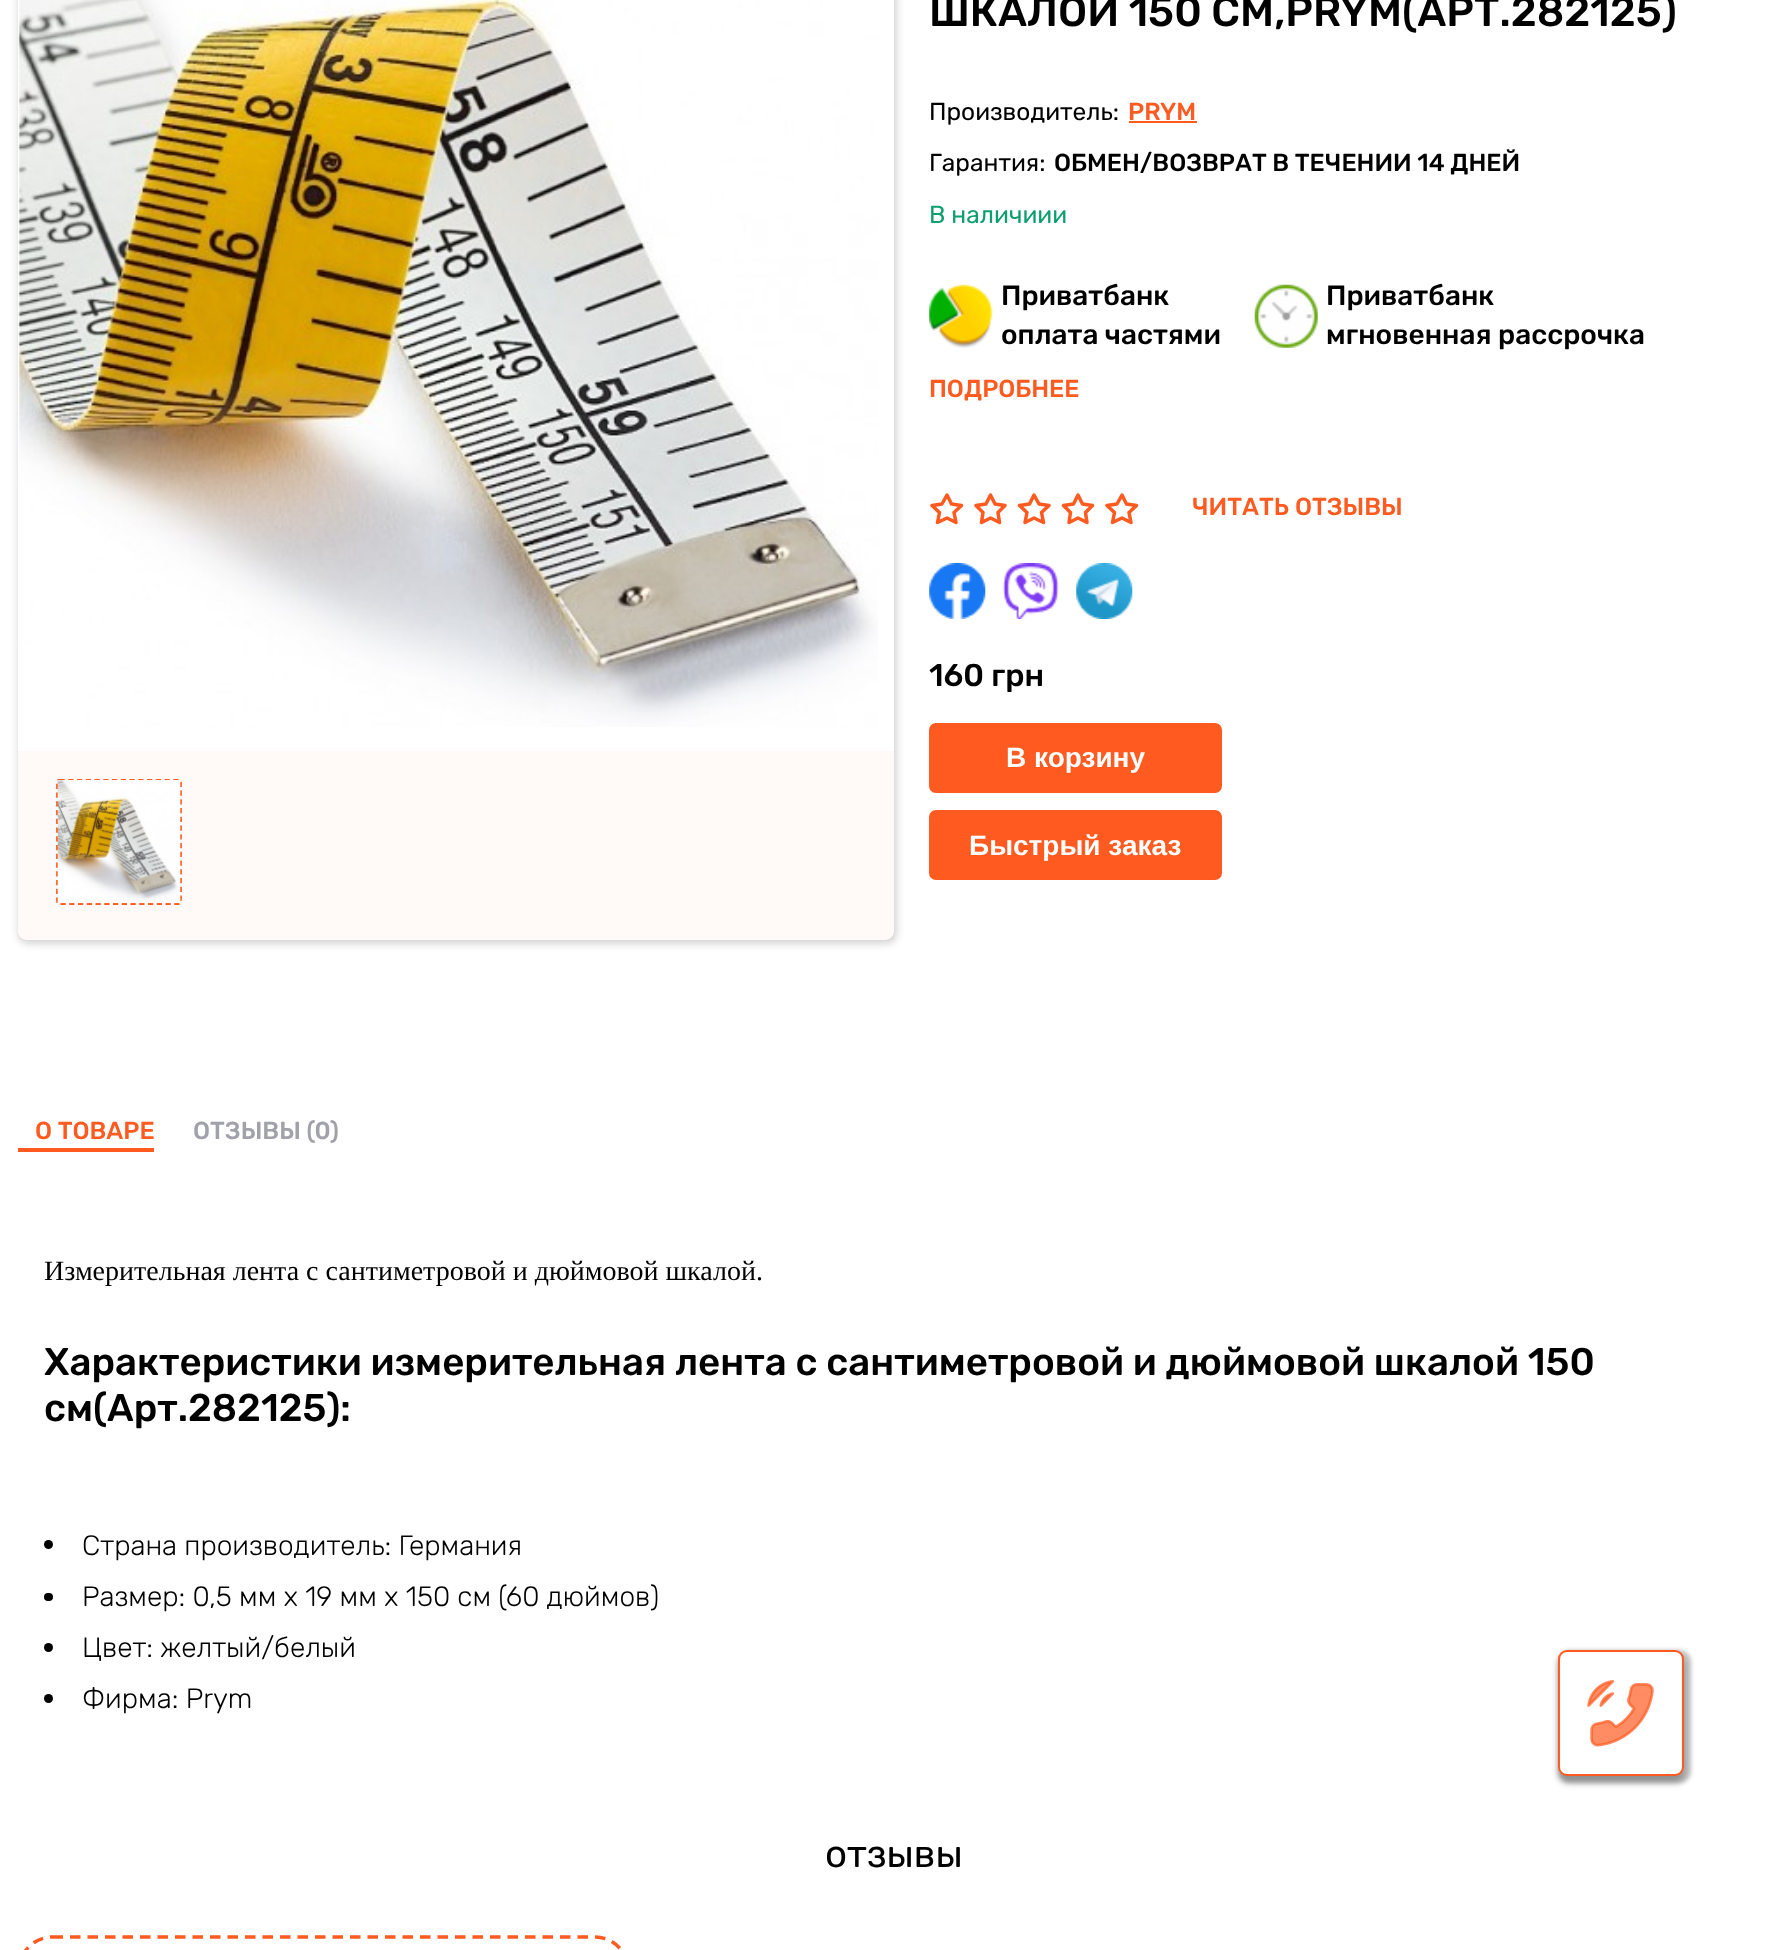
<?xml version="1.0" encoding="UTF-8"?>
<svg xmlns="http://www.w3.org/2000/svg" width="1788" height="1950">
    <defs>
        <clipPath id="clip1"><path d="M 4 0 H 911 V 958 H 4 Z M 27 -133 H 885 C 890 -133 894 -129 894 -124 V 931 C 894 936 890 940 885 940 H 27 C 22 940 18 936 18 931 V -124 C 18 -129 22 -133 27 -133 Z" clip-rule="evenodd"/></clipPath>
        <filter id="blur1" x="-50%" y="-200%" width="200%" height="500%"><feGaussianBlur stdDeviation="4.5"/></filter>
        <clipPath id="clip2"><rect x="35" y="779" width="842" height="136"/></clipPath>
        <filter id="blur2" x="-50%" y="-200%" width="200%" height="500%"><feGaussianBlur stdDeviation="3.5"/></filter>
        <filter id="blur3" x="-50%" y="-200%" width="200%" height="500%"><feGaussianBlur stdDeviation="2"/></filter>
    </defs>
    <rect width="100%" height="100%" fill="#FFFFFF"/>
    <g clip-path="url(#clip1)">
        <rect x="19" y="-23" width="877" height="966" rx="9" fill="#000000" fill-opacity="0.1" filter="url(#blur1)"/>
        <rect x="19" y="-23" width="877" height="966" rx="9" fill="#000000" fill-opacity="0.1" filter="url(#blur1)"/>
    </g>
    <image x="18" y="0" width="860" height="727" href="img_01.png"/>
    <rect x="18" y="751" width="876" height="189" fill="#FF5A1F" fill-opacity="0.03"/>
    <g clip-path="url(#clip2)">
        <path d="M 59.5 779.5 H 178.5 C 180 779.5 181 781 181 782 V 901 C 181 902.5 180 904 178.5 904 H 59.5 C 58 904 57 902.5 57 901 V 782 C 57 781 58 779.5 59.5 779.5 Z" fill="none" stroke="#FF5A1F" stroke-width="1.8" stroke-dasharray="5.25 3.5"/>
    </g>
    <image x="57" y="780" width="124" height="124" href="img_02.png"/>
    <text x="929" y="26" font-family="Rubik" font-size="42" font-weight="500" fill="#000000">ШКАЛОЙ 150 СМ,PRYM(АРТ.282125)</text>
    <text x="929" y="120" font-family="Rubik" font-size="24.5" fill="#000000">Производитель:</text>
    <text x="1128" y="120" font-family="Rubik" font-size="24.5" font-weight="500" fill="#FF5A1F">PRYM</text>
    <rect x="1129" y="121" width="68" height="2" fill="#FF5A1F"/>
    <text x="929" y="171" font-family="Rubik" font-size="24.5" fill="#000000">Гарантия:</text>
    <text x="1054" y="171" font-family="Rubik" font-size="24.5" font-weight="500" fill="#000000">ОБМЕН/ВОЗВРАТ В ТЕЧЕНИИ 14 ДНЕЙ</text>
    <text x="929" y="223" font-family="Rubik" font-size="24.5" fill="#0E9F6E">В наличиии</text>
    <image x="929" y="284" width="64" height="64" href="img_03.png"/>
    <text font-family="Rubik" font-size="28" font-weight="500" fill="#000000">
        <tspan x="1001" y="305">Приватбанк</tspan>
        <tspan x="1001" y="344">оплата частями</tspan>
    </text>
    <image x="1254" y="284" width="64" height="64" href="img_04.png"/>
    <text font-family="Rubik" font-size="28" font-weight="500" fill="#000000">
        <tspan x="1326" y="305">Приватбанк</tspan>
        <tspan x="1326" y="344">мгновенная рассрочка</tspan>
    </text>
    <text x="929" y="397" font-family="Rubik" font-size="24.5" font-weight="500" fill="#FF5A1F">ПОДРОБНЕЕ</text>
    <path d="M 947 495 L 951.5 504 L 961.5 505.5 L 954 512.5 L 956 522.5 L 947 518 L 937.5 522.5 L 939.5 512.5 L 932 505.5 L 942 504 Z" fill="none" stroke="#FF5A1F" stroke-width="3.5" stroke-linecap="round" stroke-linejoin="round"/>
    <path d="M 990.5 495 L 995 504 L 1005 505.5 L 998 512.5 L 999.5 522.5 L 990.5 518 L 981.5 522.5 L 983 512.5 L 976 505.5 L 986 504 Z" fill="none" stroke="#FF5A1F" stroke-width="3.5" stroke-linecap="round" stroke-linejoin="round"/>
    <path d="M 1034 495 L 1039 504 L 1049 505.5 L 1041.5 512.5 L 1043.5 522.5 L 1034 518 L 1025 522.5 L 1027 512.5 L 1019.5 505.5 L 1029.5 504 Z" fill="none" stroke="#FF5A1F" stroke-width="3.5" stroke-linecap="round" stroke-linejoin="round"/>
    <path d="M 1078 495 L 1082.5 504 L 1092.5 505.5 L 1085.5 512.5 L 1087 522.5 L 1078 518 L 1069 522.5 L 1070.5 512.5 L 1063.5 505.5 L 1073.5 504 Z" fill="none" stroke="#FF5A1F" stroke-width="3.5" stroke-linecap="round" stroke-linejoin="round"/>
    <path d="M 1122 495 L 1126.5 504 L 1136.5 505.5 L 1129 512.5 L 1131 522.5 L 1122 518 L 1112.5 522.5 L 1114.5 512.5 L 1107 505.5 L 1117 504 Z" fill="none" stroke="#FF5A1F" stroke-width="3.5" stroke-linecap="round" stroke-linejoin="round"/>
    <text x="1192" y="515" font-family="Rubik" font-size="24.5" font-weight="500" fill="#FF5A1F">ЧИТАТЬ ОТЗЫВЫ</text>
    <image x="929" y="563" width="57" height="56" href="img_05.png"/>
    <image x="1002" y="563" width="57" height="56" href="img_06.png"/>
    <image x="1076" y="563" width="57" height="56" href="img_07.png"/>
    <text x="929" y="686" font-family="Rubik" font-size="31.5" font-weight="500" fill="#000000">160 грн</text>
    <rect x="930" y="724" width="291" height="68" rx="6" fill="#FF5A1F" stroke="#FF5A1F" stroke-width="2"/>
    <text x="1006" y="767" font-family="Liberation Sans" font-size="28" font-weight="700" fill="#FFFFFF">В корзину</text>
    <rect x="930" y="811" width="291" height="68" rx="6" fill="#FF5A1F" stroke="#FF5A1F" stroke-width="2"/>
    <text x="969" y="855" font-family="Liberation Sans" font-size="28" font-weight="700" fill="#FFFFFF">Быстрый заказ</text>
    <text x="35" y="1139" font-family="Rubik" font-size="24.5" font-weight="500" fill="#FF5A1F">О ТОВАРЕ</text>
    <rect x="18" y="1148" width="136" height="4" fill="#FF5A1F"/>
    <text x="193" y="1139" font-family="Rubik" font-size="24.5" font-weight="500" fill="#A1A1AA">ОТЗЫВЫ (0)</text>
    <text x="44" y="1280" font-family="Liberation Serif" font-size="28" fill="#000000">Измерительная лента с сантиметровой и дюймовой шкалой.</text>
    <text font-family="Rubik" font-size="38.5" font-weight="500" fill="#000000">
        <tspan x="44" y="1375">Характеристики измерительная лента с сантиметровой и дюймовой шкалой 150</tspan>
        <tspan x="44" y="1421">см(Арт.282125):</tspan>
    </text>
    <circle cx="48.5" cy="1544.5" r="4.5" fill="#000000"/>
    <text x="82" y="1555" font-family="Rubik" font-size="28" font-weight="300" fill="#000000">Страна производитель: Германия</text>
    <rect x="44" y="1593" width="9" height="8" rx="4" fill="#000000"/>
    <text x="82" y="1606" font-family="Rubik" font-size="28" font-weight="300" fill="#000000">Размер: 0,5 мм x 19 мм x 150 см (60 дюймов)</text>
    <circle cx="48.5" cy="1647.5" r="4.5" fill="#000000"/>
    <text x="82" y="1657" font-family="Rubik" font-size="28" font-weight="300" fill="#000000">Цвет: желтый/белый</text>
    <circle cx="48.5" cy="1698.5" r="4.5" fill="#000000"/>
    <text x="82" y="1708" font-family="Rubik" font-size="28" font-weight="300" fill="#000000">Фирма: Prym</text>
    <text x="825" y="1867" font-family="Rubik" font-size="38.5" fill="#000000">отзывы</text>
    <path d="M 52.5 1937 H 595 C 613.5 1937 628 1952 628 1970.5 V 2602 C 628 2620.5 613.5 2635.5 595 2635.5 H 52.5 C 34 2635.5 19 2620.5 19 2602 V 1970.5 C 19 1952 34 1937 52.5 1937 Z" fill="none" stroke="#FF5A1F" stroke-width="3.5" stroke-dasharray="10.5 7"/>
    <rect x="1558" y="1657" width="126" height="126" rx="9" fill="#000000" fill-opacity="0.25" filter="url(#blur2)"/>
    <rect x="1558" y="1650" width="133" height="133" rx="12" fill="#000000" fill-opacity="0.25" filter="url(#blur3)"/>
    <rect x="1559" y="1651" width="124" height="124" rx="8" fill="#FFFFFF" stroke="#FF5A1F" stroke-width="2"/>
    <image x="1587" y="1680" width="67" height="67" href="img_08.png"/>
</svg>
